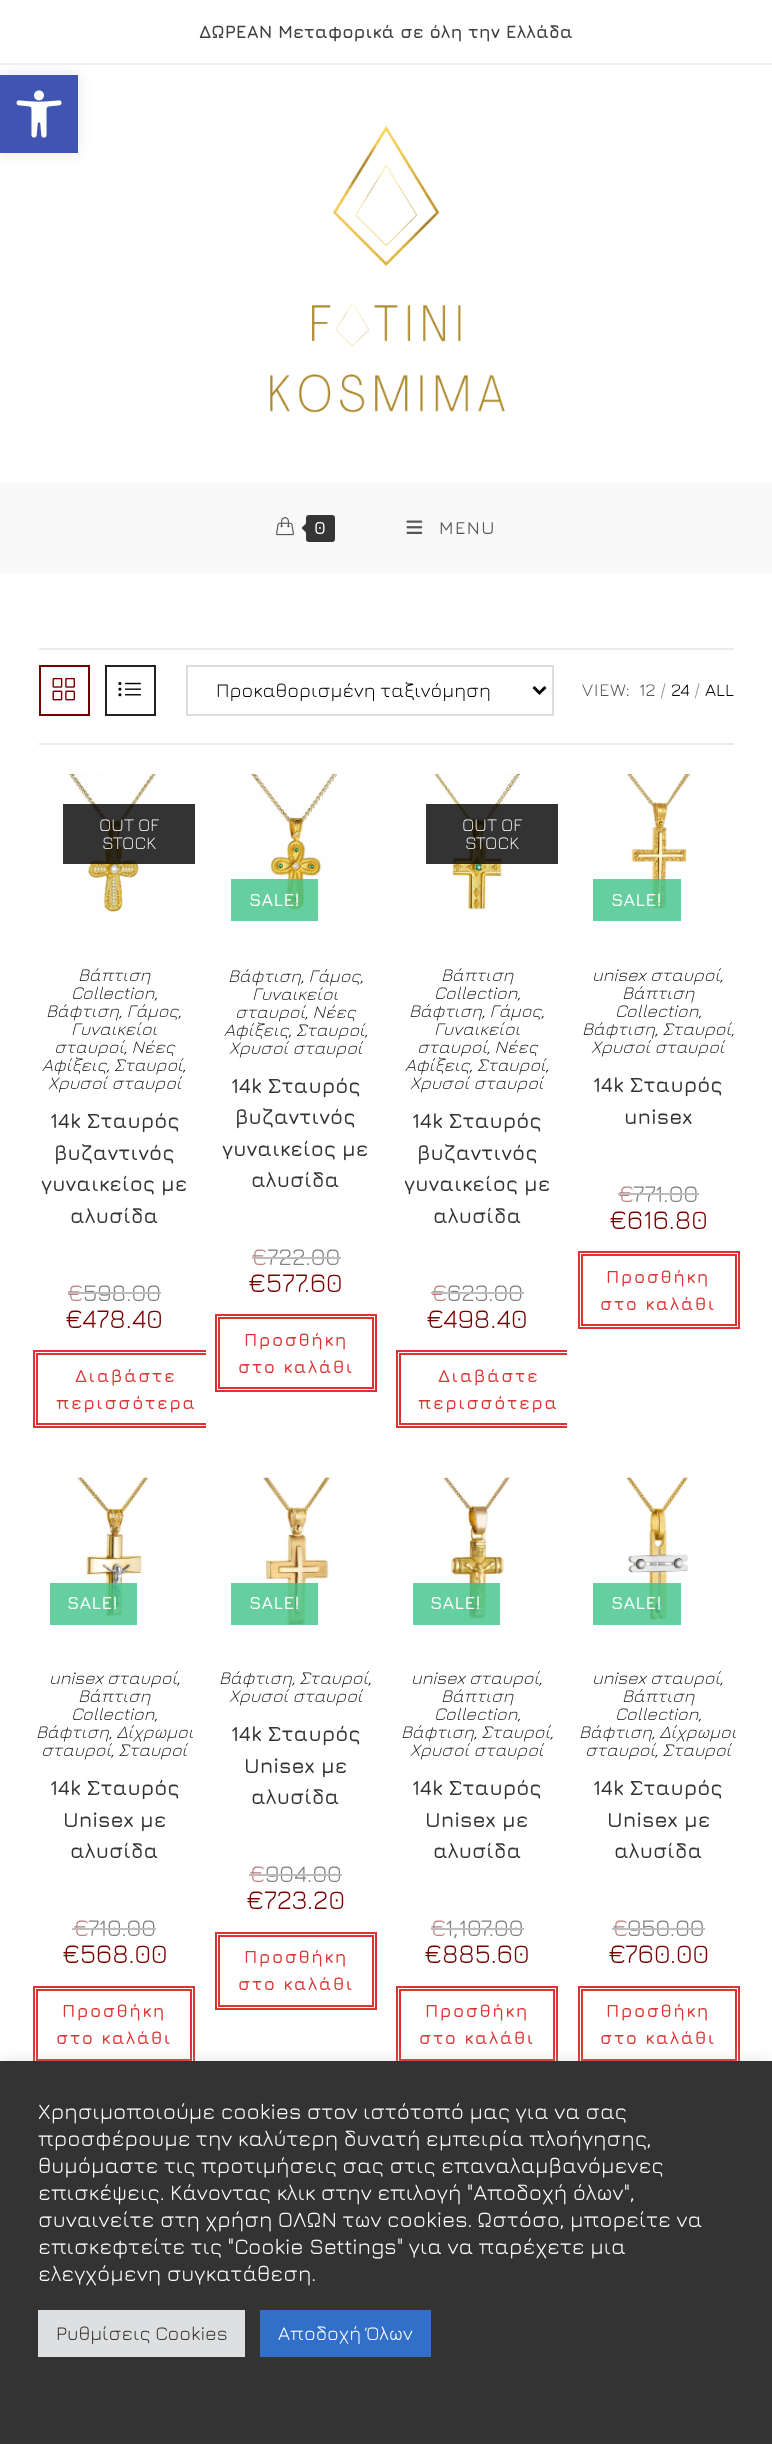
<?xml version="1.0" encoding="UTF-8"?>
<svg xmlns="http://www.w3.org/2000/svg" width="772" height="2444">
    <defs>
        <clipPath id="clip1"><rect x="24" y="774" width="182" height="684"/></clipPath>
        <clipPath id="clip2"><rect x="387" y="774" width="180" height="684"/></clipPath>
        <filter id="blur1" x="-50%" y="-200%" width="200%" height="500%"><feGaussianBlur stdDeviation="7.5"/></filter>
    </defs>
    <rect width="100%" height="100%" fill="#FFFFFF"/>
    <rect x="0" y="63" width="772" height="2" fill="#F1F1F1"/>
    <text x="199" y="38" font-family="Jura" font-size="18" font-weight="700" fill="#404040">ΔΩΡΕΑΝ Μεταφορικά σε όλη την Ελλάδα</text>
    <image x="270" y="125" width="235" height="288" href="img_01.png"/>
    <rect x="0" y="483" width="772" height="90" fill="#F9F9F9"/>
    <image x="276" y="517" width="18" height="19" href="img_02.png"/>
    <rect x="306" y="515" width="29" height="27" rx="3" fill="#353535"/>
    <path d="M 309 520.5 V 535.5 L 301.5 528 Z" fill="#353535"/>
    <text x="314" y="534" font-family="Jura" font-size="18" font-weight="600" letter-spacing="1.5" fill="#FFFFFF">0</text>
    <image x="406" y="520" width="17" height="14" href="img_03.png"/>
    <text x="439" y="534" font-family="Jura" font-size="18" font-weight="500" letter-spacing="1.5" fill="#555555">MENU</text>
    <rect x="39" y="648" width="695" height="2" fill="#EAEAEA"/>
    <rect x="39" y="743" width="695" height="2" fill="#EAEAEA"/>
    <rect x="40" y="666" width="49" height="49" fill="none" stroke="#770000" stroke-width="2"/>
    <image x="52" y="677" width="23" height="24" href="img_04.png"/>
    <rect x="106" y="666" width="49" height="49" fill="none" stroke="#222222" stroke-width="2"/>
    <image x="118" y="682" width="23" height="15" href="img_05.png"/>
    <rect x="187" y="666" width="366" height="49" fill="none" stroke="#DDDDDD" stroke-width="2"/>
    <path d="M 533.5 687 L 539.5 693 L 545.5 687" fill="none" stroke="#000000" stroke-width="3"/>
    <text x="216" y="697" font-family="Jura" font-size="19.5" fill="#000000">Προκαθορισμένη ταξινόμηση</text>
    <text x="582" y="696" font-family="Jura" font-size="18" letter-spacing="1" fill="#555555">VIEW:</text>
    <text x="639" y="696" font-family="Jura" font-size="18" fill="#555555">12</text>
    <text x="660" y="696" font-family="Jura" font-size="18" fill="#999999">/</text>
    <text x="671" y="696" font-family="Jura" font-size="18" fill="#000000">24</text>
    <text x="694" y="696" font-family="Jura" font-size="18" fill="#999999">/</text>
    <text x="705" y="696" font-family="Jura" font-size="18" fill="#000000">ALL</text>
    <image x="68" y="774" width="89" height="139" href="img_06.png"/>
    <rect x="63" y="804" width="132" height="60" fill="#000000" fill-opacity="0.8"/>
    <text x="99" y="831" font-family="Jura" font-size="18" font-weight="300" fill="#FFFFFF">OUT OF</text>
    <text x="102" y="849" font-family="Jura" font-size="18" font-weight="300" fill="#FFFFFF">STOCK</text>
    <text x="78" y="981" font-family="Jura" font-size="18" font-weight="300" font-style="italic" fill="#0A0A0A">Βάπτιση</text>
    <text x="71" y="999" font-family="Jura" font-size="18" font-weight="300" font-style="italic" fill="#0A0A0A">Collection,</text>
    <text x="46" y="1017" font-family="Jura" font-size="18" font-weight="300" font-style="italic" fill="#0A0A0A">Βάφτιση, Γάμος,</text>
    <text x="71" y="1035" font-family="Jura" font-size="18" font-weight="300" font-style="italic" fill="#0A0A0A">Γυναικείοι</text>
    <text x="54" y="1053" font-family="Jura" font-size="18" font-weight="300" font-style="italic" fill="#0A0A0A">σταυροί, Νέες</text>
    <text x="42" y="1071" font-family="Jura" font-size="18" font-weight="300" font-style="italic" fill="#0A0A0A">Αφίξεις, Σταυροί,</text>
    <text x="48" y="1089" font-family="Jura" font-size="18" font-weight="300" font-style="italic" fill="#0A0A0A">Χρυσοί σταυροί</text>
    <text x="50" y="1128" font-family="Jura" font-size="21" font-weight="600" fill="#333333">14k Σταυρός</text>
    <text x="54" y="1160" font-family="Jura" font-size="21" font-weight="600" fill="#333333">βυζαντινός</text>
    <text x="41" y="1191" font-family="Jura" font-size="21" font-weight="600" fill="#333333">γυναικείος με</text>
    <text x="70" y="1223" font-family="Jura" font-size="21" font-weight="600" fill="#333333">αλυσίδα</text>
    <text x="67" y="1301" font-family="Jura" font-size="24" fill="#BB8080">€</text>
    <rect x="68" y="1292" width="16" height="2" fill="#BDBDBD"/>
    <text x="83" y="1301" font-family="Jura" font-size="24" fill="#808080">598.00</text>
    <rect x="84" y="1292" width="77" height="2" fill="#BDBDBD"/>
    <text x="65" y="1328" font-family="Jura" font-size="27" fill="#770000">€</text>
    <text x="82" y="1328" font-family="Jura" font-size="27" fill="#770000">478.40</text>
    <g clip-path="url(#clip1)">
        <rect x="34" y="1351" width="184" height="76" fill="none" stroke="#DD3333" stroke-width="2"/>
        <rect x="37" y="1354" width="178" height="70" fill="none" stroke="#DD3333" stroke-width="2"/>
    </g>
    <text x="75" y="1382" font-family="Jura" font-size="18" font-weight="600" letter-spacing="1.5" fill="#DD3333">Διαβάστε</text>
    <text x="56" y="1409" font-family="Jura" font-size="18" font-weight="600" letter-spacing="1.5" fill="#DD3333">περισσότερα</text>
    <image x="250" y="774" width="87" height="137" href="img_07.png"/>
    <rect x="231" y="879" width="87" height="42" fill="#3FC387" fill-opacity="0.8"/>
    <text x="249" y="906" font-family="Jura" font-size="18" font-weight="600" letter-spacing="0.5" fill="#FFFFFF">SALE!</text>
    <text x="228" y="982" font-family="Jura" font-size="18" font-weight="300" font-style="italic" fill="#0A0A0A">Βάφτιση, Γάμος,</text>
    <text x="252" y="1000" font-family="Jura" font-size="18" font-weight="300" font-style="italic" fill="#0A0A0A">Γυναικείοι</text>
    <text x="235" y="1018" font-family="Jura" font-size="18" font-weight="300" font-style="italic" fill="#0A0A0A">σταυροί, Νέες</text>
    <text x="224" y="1036" font-family="Jura" font-size="18" font-weight="300" font-style="italic" fill="#0A0A0A">Αφίξεις, Σταυροί,</text>
    <text x="229" y="1054" font-family="Jura" font-size="18" font-weight="300" font-style="italic" fill="#0A0A0A">Χρυσοί σταυροί</text>
    <text x="231" y="1093" font-family="Jura" font-size="21" font-weight="600" fill="#333333">14k Σταυρός</text>
    <text x="235" y="1124" font-family="Jura" font-size="21" font-weight="600" fill="#333333">βυζαντινός</text>
    <text x="222" y="1156" font-family="Jura" font-size="21" font-weight="600" fill="#333333">γυναικείος με</text>
    <text x="251" y="1187" font-family="Jura" font-size="21" font-weight="600" fill="#333333">αλυσίδα</text>
    <text x="251" y="1265" font-family="Jura" font-size="24" fill="#BB8080">€</text>
    <text x="267" y="1265" font-family="Jura" font-size="24" fill="#808080">722.00</text>
    <rect x="252" y="1257" width="15" height="2" fill="#BDBDBD"/>
    <rect x="267" y="1257" width="74" height="2" fill="#BDBDBD"/>
    <text x="248" y="1292" font-family="Jura" font-size="27" fill="#770000">€577.60</text>
    <rect x="216" y="1315" width="160" height="76" fill="none" stroke="#DD3333" stroke-width="2"/>
    <rect x="219" y="1318" width="154" height="70" fill="none" stroke="#DD3333" stroke-width="2"/>
    <text x="244" y="1346" font-family="Jura" font-size="18" font-weight="600" letter-spacing="1.5" fill="#DD3333">Προσθήκη</text>
    <text x="238" y="1373" font-family="Jura" font-size="18" font-weight="600" letter-spacing="1.5" fill="#DD3333">στο καλάθι</text>
    <image x="434" y="774" width="87" height="136" href="img_08.png"/>
    <rect x="426" y="804" width="132" height="60" fill="#000000" fill-opacity="0.8"/>
    <text x="462" y="831" font-family="Jura" font-size="18" font-weight="300" fill="#FFFFFF">OUT OF</text>
    <text x="465" y="849" font-family="Jura" font-size="18" font-weight="300" fill="#FFFFFF">STOCK</text>
    <text x="441" y="981" font-family="Jura" font-size="18" font-weight="300" font-style="italic" fill="#0A0A0A">Βάπτιση</text>
    <text x="434" y="999" font-family="Jura" font-size="18" font-weight="300" font-style="italic" fill="#0A0A0A">Collection,</text>
    <text x="409" y="1017" font-family="Jura" font-size="18" font-weight="300" font-style="italic" fill="#0A0A0A">Βάφτιση, Γάμος,</text>
    <text x="434" y="1035" font-family="Jura" font-size="18" font-weight="300" font-style="italic" fill="#0A0A0A">Γυναικείοι</text>
    <text x="417" y="1053" font-family="Jura" font-size="18" font-weight="300" font-style="italic" fill="#0A0A0A">σταυροί, Νέες</text>
    <text x="405" y="1071" font-family="Jura" font-size="18" font-weight="300" font-style="italic" fill="#0A0A0A">Αφίξεις, Σταυροί,</text>
    <text x="410" y="1089" font-family="Jura" font-size="18" font-weight="300" font-style="italic" fill="#0A0A0A">Χρυσοί σταυροί</text>
    <text x="412" y="1128" font-family="Jura" font-size="21" font-weight="600" fill="#333333">14k Σταυρός</text>
    <text x="417" y="1160" font-family="Jura" font-size="21" font-weight="600" fill="#333333">βυζαντινός</text>
    <text x="404" y="1191" font-family="Jura" font-size="21" font-weight="600" fill="#333333">γυναικείος με</text>
    <text x="433" y="1223" font-family="Jura" font-size="21" font-weight="600" fill="#333333">αλυσίδα</text>
    <text x="431" y="1301" font-family="Jura" font-size="24" fill="#BB8080">€</text>
    <rect x="431" y="1292" width="16" height="2" fill="#BDBDBD"/>
    <text x="447" y="1301" font-family="Jura" font-size="24" fill="#808080">623.00</text>
    <rect x="447" y="1292" width="77" height="2" fill="#BDBDBD"/>
    <text x="426" y="1328" font-family="Jura" font-size="27" fill="#770000">€</text>
    <text x="443" y="1328" font-family="Jura" font-size="27" fill="#770000">498.40</text>
    <g clip-path="url(#clip2)">
        <rect x="397" y="1351" width="183" height="76" fill="none" stroke="#DD3333" stroke-width="2"/>
        <rect x="400" y="1354" width="177" height="70" fill="none" stroke="#DD3333" stroke-width="2"/>
    </g>
    <text x="438" y="1382" font-family="Jura" font-size="18" font-weight="600" letter-spacing="1.5" fill="#DD3333">Διαβάστε</text>
    <text x="418" y="1409" font-family="Jura" font-size="18" font-weight="600" letter-spacing="1.5" fill="#DD3333">περισσότερα</text>
    <image x="626" y="774" width="64" height="135" href="img_09.png"/>
    <rect x="593" y="879" width="88" height="42" fill="#3FC387" fill-opacity="0.8"/>
    <text x="611" y="906" font-family="Jura" font-size="18" font-weight="600" letter-spacing="0.5" fill="#FFFFFF">SALE!</text>
    <text x="592" y="981" font-family="Jura" font-size="18" font-weight="300" font-style="italic" fill="#0A0A0A">unisex σταυροί,</text>
    <text x="622" y="999" font-family="Jura" font-size="18" font-weight="300" font-style="italic" fill="#0A0A0A">Βάπτιση</text>
    <text x="615" y="1017" font-family="Jura" font-size="18" font-weight="300" font-style="italic" fill="#0A0A0A">Collection,</text>
    <text x="582" y="1035" font-family="Jura" font-size="18" font-weight="300" font-style="italic" fill="#0A0A0A">Βάφτιση, Σταυροί,</text>
    <text x="591" y="1053" font-family="Jura" font-size="18" font-weight="300" font-style="italic" fill="#0A0A0A">Χρυσοί σταυροί</text>
    <text x="593" y="1092" font-family="Jura" font-size="21" font-weight="600" fill="#333333">14k Σταυρός</text>
    <text x="624" y="1124" font-family="Jura" font-size="21" font-weight="600" fill="#333333">unisex</text>
    <text x="618" y="1202" font-family="Jura" font-size="24" fill="#BB8080">€</text>
    <rect x="618" y="1193" width="15" height="2" fill="#BDBDBD"/>
    <text x="633" y="1202" font-family="Jura" font-size="24" fill="#808080">771.00</text>
    <rect x="633" y="1193" width="66" height="2" fill="#BDBDBD"/>
    <text x="609" y="1229" font-family="Jura" font-size="27" fill="#770000">€616.80</text>
    <rect x="579" y="1252" width="160" height="76" fill="none" stroke="#DD3333" stroke-width="2"/>
    <rect x="582" y="1255" width="154" height="70" fill="none" stroke="#DD3333" stroke-width="2"/>
    <text x="606" y="1283" font-family="Jura" font-size="18" font-weight="600" letter-spacing="1.5" fill="#DD3333">Προσθήκη</text>
    <text x="600" y="1310" font-family="Jura" font-size="18" font-weight="600" letter-spacing="1.5" fill="#DD3333">στο καλάθι</text>
    <image x="77" y="1477" width="72" height="140" href="img_10.png"/>
    <rect x="50" y="1583" width="87" height="42" fill="#3FC387" fill-opacity="0.8"/>
    <text x="67" y="1609" font-family="Jura" font-size="18" font-weight="600" letter-spacing="0.5" fill="#FFFFFF">SALE!</text>
    <text x="49" y="1684" font-family="Jura" font-size="18" font-weight="300" font-style="italic" fill="#0A0A0A">unisex σταυροί,</text>
    <text x="78" y="1702" font-family="Jura" font-size="18" font-weight="300" font-style="italic" fill="#0A0A0A">Βάπτιση</text>
    <text x="71" y="1720" font-family="Jura" font-size="18" font-weight="300" font-style="italic" fill="#0A0A0A">Collection,</text>
    <text x="36" y="1738" font-family="Jura" font-size="18" font-weight="300" font-style="italic" fill="#0A0A0A">Βάφτιση, Δίχρωμοι</text>
    <text x="41" y="1756" font-family="Jura" font-size="18" font-weight="300" font-style="italic" fill="#0A0A0A">σταυροί, Σταυροί</text>
    <text x="50" y="1795" font-family="Jura" font-size="21" font-weight="600" fill="#333333">14k Σταυρός</text>
    <text x="63" y="1827" font-family="Jura" font-size="21" font-weight="600" fill="#333333">Unisex με</text>
    <text x="70" y="1858" font-family="Jura" font-size="21" font-weight="600" fill="#333333">αλυσίδα</text>
    <text x="73" y="1936" font-family="Jura" font-size="24" fill="#BB8080">€</text>
    <rect x="72" y="1928" width="17" height="2" fill="#BDBDBD"/>
    <text x="88" y="1936" font-family="Jura" font-size="24" fill="#808080">710.00</text>
    <rect x="89" y="1928" width="67" height="2" fill="#BDBDBD"/>
    <text x="62" y="1963" font-family="Jura" font-size="27" fill="#770000">€568.00</text>
    <rect x="34" y="1987" width="160" height="76" fill="none" stroke="#DD3333" stroke-width="2"/>
    <rect x="37" y="1990" width="154" height="70" fill="none" stroke="#DD3333" stroke-width="2"/>
    <text x="62" y="2017" font-family="Jura" font-size="18" font-weight="600" letter-spacing="1.5" fill="#DD3333">Προσθήκη</text>
    <text x="56" y="2044" font-family="Jura" font-size="18" font-weight="600" letter-spacing="1.5" fill="#DD3333">στο καλάθι</text>
    <image x="262" y="1477" width="69" height="149" href="img_11.png"/>
    <rect x="231" y="1583" width="87" height="42" fill="#3FC387" fill-opacity="0.8"/>
    <text x="249" y="1609" font-family="Jura" font-size="18" font-weight="600" letter-spacing="0.5" fill="#FFFFFF">SALE!</text>
    <text x="219" y="1684" font-family="Jura" font-size="18" font-weight="300" font-style="italic" fill="#0A0A0A">Βάφτιση, Σταυροί,</text>
    <text x="229" y="1702" font-family="Jura" font-size="18" font-weight="300" font-style="italic" fill="#0A0A0A">Χρυσοί σταυροί</text>
    <text x="231" y="1741" font-family="Jura" font-size="21" font-weight="600" fill="#333333">14k Σταυρός</text>
    <text x="244" y="1773" font-family="Jura" font-size="21" font-weight="600" fill="#333333">Unisex με</text>
    <text x="251" y="1804" font-family="Jura" font-size="21" font-weight="600" fill="#333333">αλυσίδα</text>
    <text x="249" y="1882" font-family="Jura" font-size="24" fill="#BB8080">€</text>
    <text x="265" y="1882" font-family="Jura" font-size="24" fill="#808080">904.00</text>
    <rect x="249" y="1874" width="17" height="2" fill="#BDBDBD"/>
    <rect x="266" y="1874" width="76" height="2" fill="#BDBDBD"/>
    <text x="246" y="1909" font-family="Jura" font-size="27" fill="#770000">€</text>
    <text x="264" y="1909" font-family="Jura" font-size="27" fill="#770000">723.20</text>
    <rect x="216" y="1933" width="160" height="76" fill="none" stroke="#DD3333" stroke-width="2"/>
    <rect x="219" y="1936" width="154" height="70" fill="none" stroke="#DD3333" stroke-width="2"/>
    <text x="244" y="1963" font-family="Jura" font-size="18" font-weight="600" letter-spacing="1.5" fill="#DD3333">Προσθήκη</text>
    <text x="238" y="1990" font-family="Jura" font-size="18" font-weight="600" letter-spacing="1.5" fill="#DD3333">στο καλάθι</text>
    <image x="442" y="1477" width="68" height="142" href="img_12.png"/>
    <rect x="413" y="1583" width="87" height="42" fill="#3FC387" fill-opacity="0.8"/>
    <text x="430" y="1609" font-family="Jura" font-size="18" font-weight="600" letter-spacing="0.5" fill="#FFFFFF">SALE!</text>
    <text x="411" y="1684" font-family="Jura" font-size="18" font-weight="300" font-style="italic" fill="#0A0A0A">unisex σταυροί,</text>
    <text x="441" y="1702" font-family="Jura" font-size="18" font-weight="300" font-style="italic" fill="#0A0A0A">Βάπτιση</text>
    <text x="434" y="1720" font-family="Jura" font-size="18" font-weight="300" font-style="italic" fill="#0A0A0A">Collection,</text>
    <text x="401" y="1738" font-family="Jura" font-size="18" font-weight="300" font-style="italic" fill="#0A0A0A">Βάφτιση, Σταυροί,</text>
    <text x="410" y="1756" font-family="Jura" font-size="18" font-weight="300" font-style="italic" fill="#0A0A0A">Χρυσοί σταυροί</text>
    <text x="412" y="1795" font-family="Jura" font-size="21" font-weight="600" fill="#333333">14k Σταυρός</text>
    <text x="425" y="1827" font-family="Jura" font-size="21" font-weight="600" fill="#333333">Unisex με</text>
    <text x="433" y="1858" font-family="Jura" font-size="21" font-weight="600" fill="#333333">αλυσίδα</text>
    <text x="430" y="1936" font-family="Jura" font-size="24" fill="#BB8080">€</text>
    <rect x="431" y="1928" width="15" height="2" fill="#BDBDBD"/>
    <text x="445" y="1936" font-family="Jura" font-size="24" fill="#808080">1,107.00</text>
    <rect x="446" y="1928" width="78" height="2" fill="#BDBDBD"/>
    <text x="424" y="1963" font-family="Jura" font-size="27" fill="#770000">€885.60</text>
    <rect x="397" y="1987" width="160" height="76" fill="none" stroke="#DD3333" stroke-width="2"/>
    <rect x="400" y="1990" width="154" height="70" fill="none" stroke="#DD3333" stroke-width="2"/>
    <text x="425" y="2017" font-family="Jura" font-size="18" font-weight="600" letter-spacing="1.5" fill="#DD3333">Προσθήκη</text>
    <text x="419" y="2044" font-family="Jura" font-size="18" font-weight="600" letter-spacing="1.5" fill="#DD3333">στο καλάθι</text>
    <image x="625" y="1477" width="64" height="145" href="img_13.png"/>
    <rect x="593" y="1583" width="88" height="42" fill="#3FC387" fill-opacity="0.8"/>
    <text x="611" y="1609" font-family="Jura" font-size="18" font-weight="600" letter-spacing="0.5" fill="#FFFFFF">SALE!</text>
    <text x="592" y="1684" font-family="Jura" font-size="18" font-weight="300" font-style="italic" fill="#0A0A0A">unisex σταυροί,</text>
    <text x="622" y="1702" font-family="Jura" font-size="18" font-weight="300" font-style="italic" fill="#0A0A0A">Βάπτιση</text>
    <text x="615" y="1720" font-family="Jura" font-size="18" font-weight="300" font-style="italic" fill="#0A0A0A">Collection,</text>
    <text x="579" y="1738" font-family="Jura" font-size="18" font-weight="300" font-style="italic" fill="#0A0A0A">Βάφτιση, Δίχρωμοι</text>
    <text x="585" y="1756" font-family="Jura" font-size="18" font-weight="300" font-style="italic" fill="#0A0A0A">σταυροί, Σταυροί</text>
    <text x="593" y="1795" font-family="Jura" font-size="21" font-weight="600" fill="#333333">14k Σταυρός</text>
    <text x="607" y="1827" font-family="Jura" font-size="21" font-weight="600" fill="#333333">Unisex με</text>
    <text x="614" y="1858" font-family="Jura" font-size="21" font-weight="600" fill="#333333">αλυσίδα</text>
    <text x="612" y="1936" font-family="Jura" font-size="24" fill="#BB8080">€</text>
    <rect x="612" y="1928" width="15" height="2" fill="#BDBDBD"/>
    <text x="627" y="1936" font-family="Jura" font-size="24" fill="#808080">950.00</text>
    <rect x="627" y="1928" width="78" height="2" fill="#BDBDBD"/>
    <text x="608" y="1963" font-family="Jura" font-size="27" fill="#770000">€</text>
    <text x="625" y="1963" font-family="Jura" font-size="27" fill="#770000">760.00</text>
    <rect x="579" y="1987" width="160" height="76" fill="none" stroke="#DD3333" stroke-width="2"/>
    <rect x="582" y="1990" width="154" height="70" fill="none" stroke="#DD3333" stroke-width="2"/>
    <text x="606" y="2017" font-family="Jura" font-size="18" font-weight="600" letter-spacing="1.5" fill="#DD3333">Προσθήκη</text>
    <text x="600" y="2044" font-family="Jura" font-size="18" font-weight="600" letter-spacing="1.5" fill="#DD3333">στο καλάθι</text>
    <rect x="0" y="75" width="78" height="78" fill="#000000" fill-opacity="0.1" filter="url(#blur1)"/>
    <rect x="0" y="75" width="78" height="78" fill="#4054B2"/>
    <image x="16" y="90" width="46" height="48" href="img_14.png"/>
    <rect x="0" y="2060" width="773" height="384" fill="#ACABAB" fill-opacity="0.3" filter="url(#blur1)"/>
    <rect x="0" y="2061" width="772" height="383" fill="#333333"/>
    <text font-family="Jura" font-size="22" fill="#FFFFFF">
        <tspan x="38" y="2119">Χρησιμοποιούμε cookies στον ιστότοπό μας για να σας</tspan>
        <tspan x="38" y="2146">προσφέρουμε την καλύτερη δυνατή εμπειρία πλοήγησης,</tspan>
        <tspan x="38" y="2173">θυμόμαστε τις προτιμήσεις σας στις επαναλαμβανόμενες</tspan>
        <tspan x="38" y="2200">επισκέψεις. Κάνοντας κλικ στην επιλογή "Αποδοχή όλων",</tspan>
        <tspan x="38" y="2227">συναινείτε στη χρήση ΟΛΩΝ των cookies.</tspan>
    </text>
    <text x="477" y="2227" font-family="Jura" font-size="22" fill="#FFFFFF">Ωστόσο, μπορείτε να</text>
    <text font-family="Jura" font-size="22" fill="#FFFFFF">
        <tspan x="38" y="2254">επισκεφτείτε τις "Cookie Settings" για να παρέχετε μια</tspan>
        <tspan x="38" y="2281">ελεγχόμενη συγκατάθεση.</tspan>
    </text>
    <rect x="38" y="2310" width="207" height="47" fill="#DEDFE0"/>
    <text x="56" y="2340" font-family="Jura" font-size="19.5" fill="#333333">Ρυθμίσεις Cookies</text>
    <rect x="260" y="2310" width="171" height="47" fill="#326FC9"/>
    <text x="278" y="2340" font-family="Jura" font-size="19.5" fill="#FFFFFF">Αποδοχή Όλων</text>
</svg>
